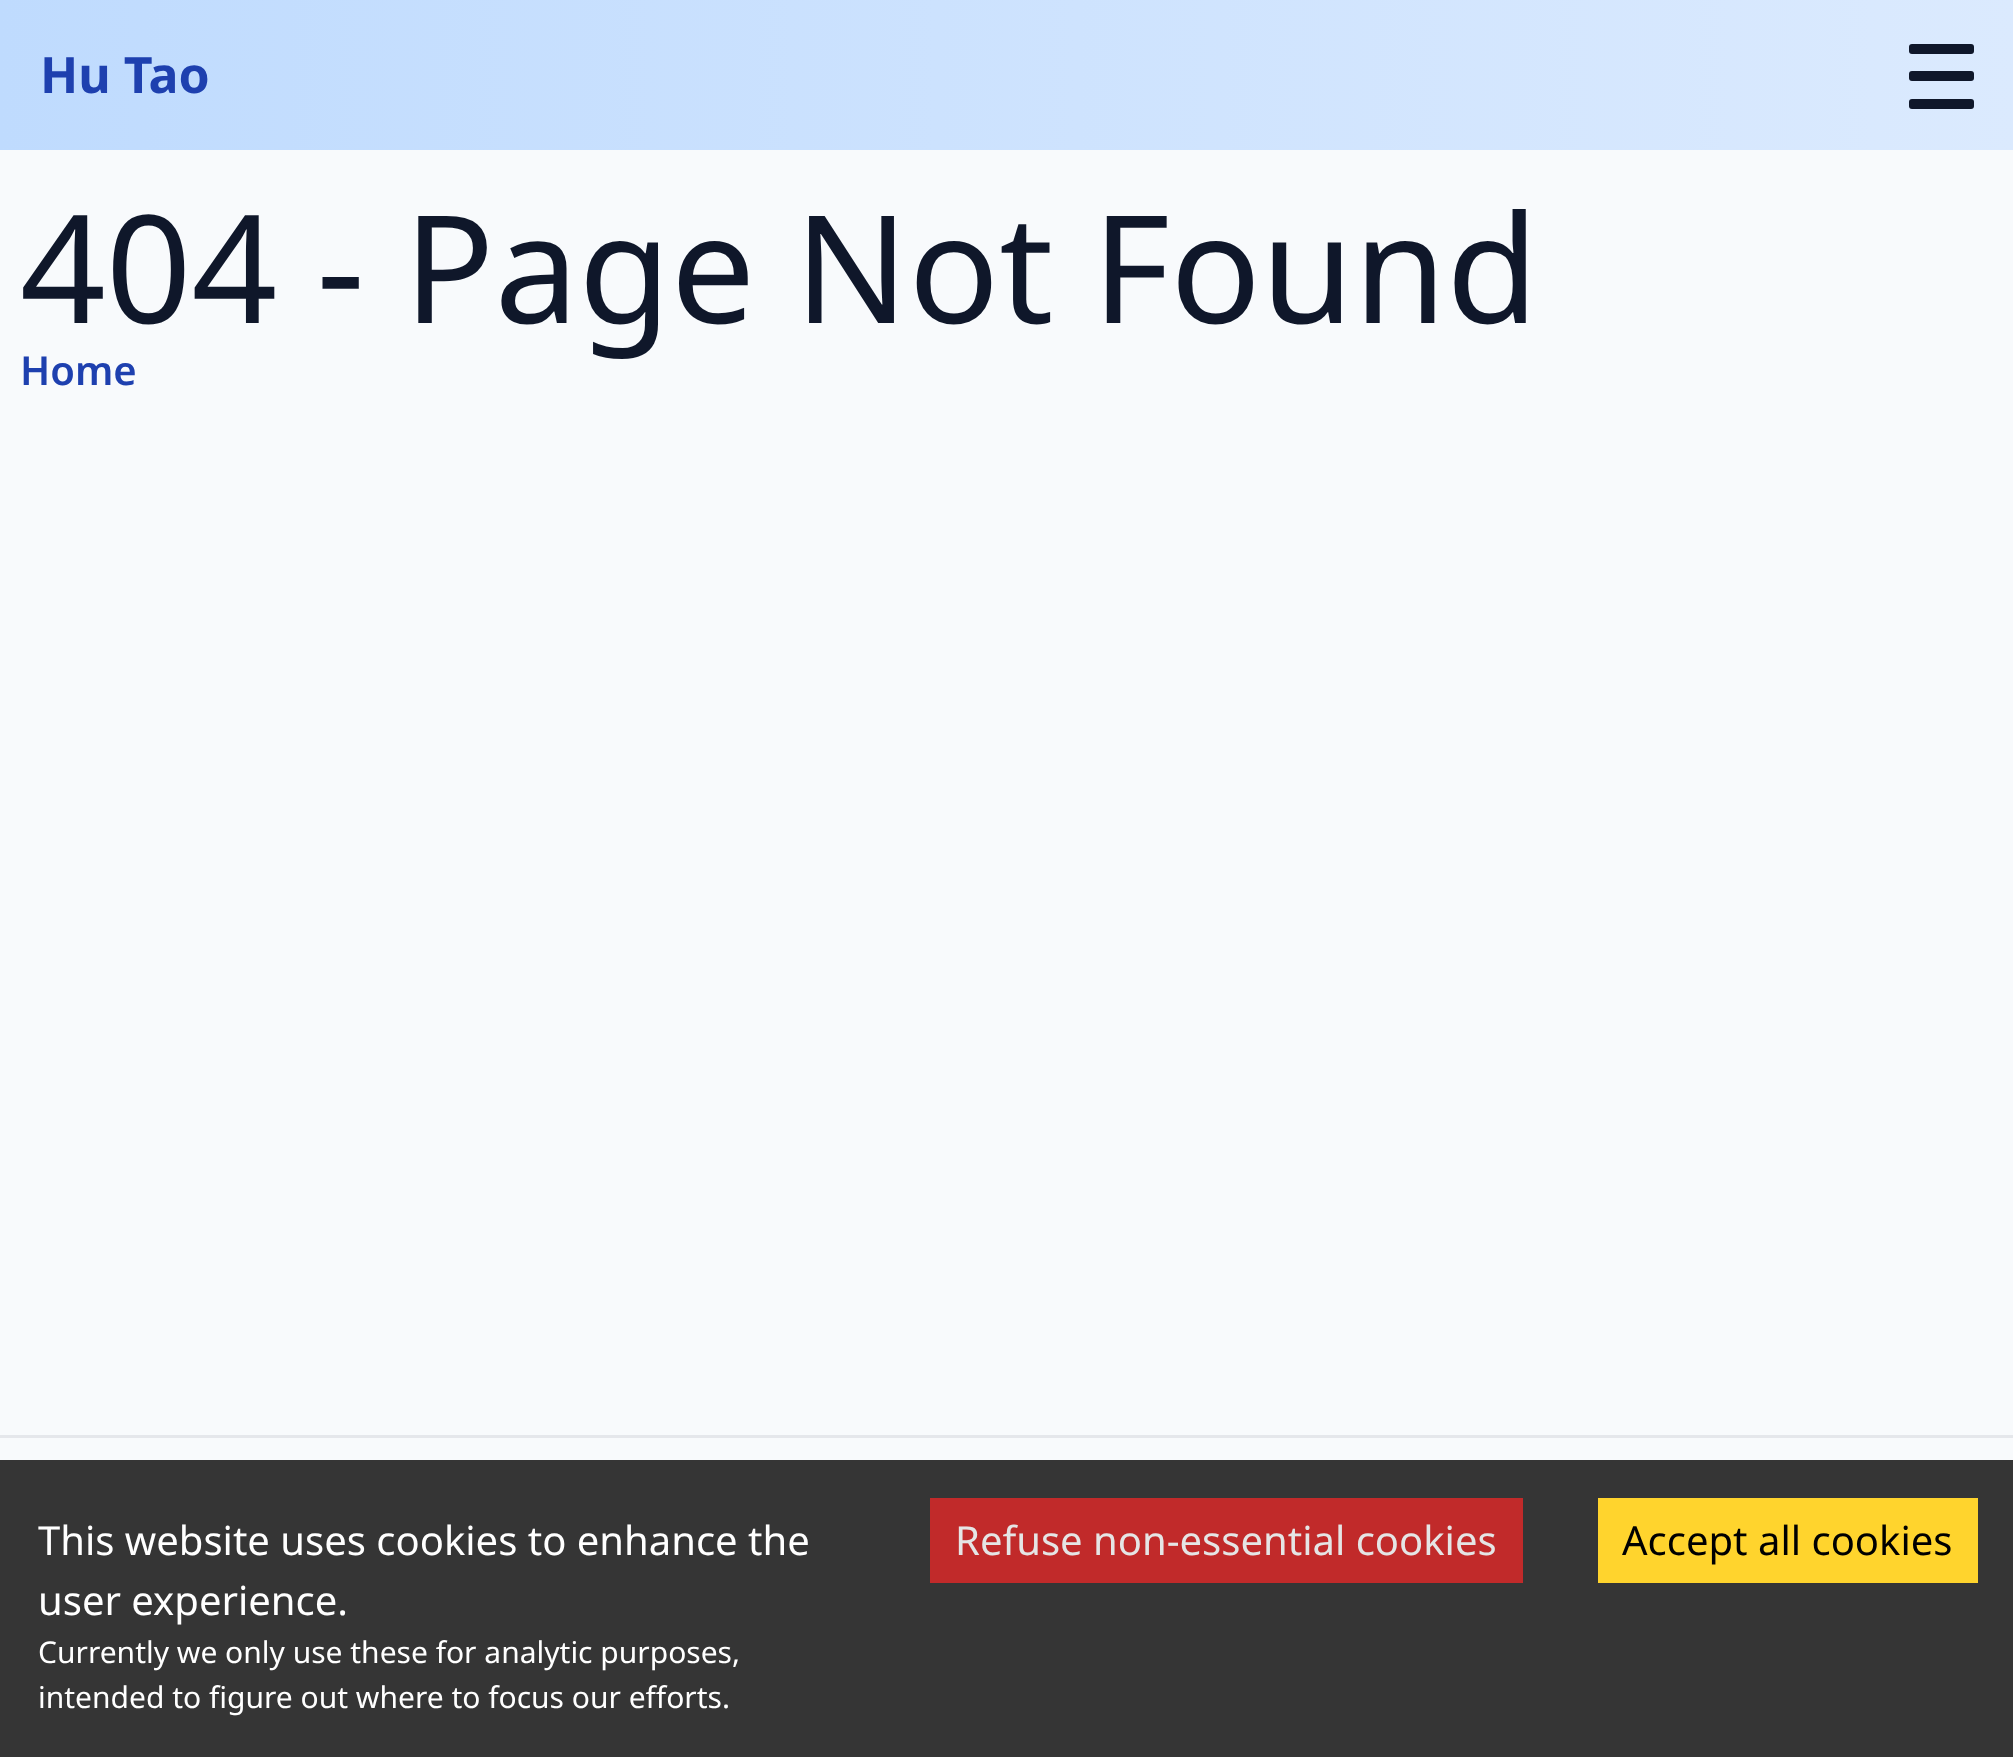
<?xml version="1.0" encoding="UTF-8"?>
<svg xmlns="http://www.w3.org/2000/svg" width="2013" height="1757">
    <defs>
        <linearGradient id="g1" gradientUnits="userSpaceOnUse" x1="0" y1="75" x2="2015" y2="75"><stop offset="0" stop-color="#BFDBFE"/><stop offset="1" stop-color="#DBEAFE"/></linearGradient>
    </defs>
    <rect width="100%" height="100%" fill="#F8FAFC"/>
    <rect x="0" y="0" width="2013" height="150" fill="url(#g1)"/>
    <text x="40" y="93" font-family="Noto Sans" font-size="50" font-weight="700" fill="#1E40AF">Hu Tao</text>
    <rect x="1909" y="44" width="65" height="10" rx="3" fill="#0F172A"/>
    <rect x="1909" y="71" width="65" height="10" rx="3" fill="#0F172A"/>
    <rect x="1909" y="99" width="65" height="10" rx="3" fill="#0F172A"/>
    <text x="20" y="323" font-family="Noto Sans" font-size="150" fill="#0F172A">404 - Page Not Found</text>
    <text x="20" y="385" font-family="Noto Sans" font-size="40" font-weight="600" fill="#1E40AF">Home</text>
    <rect x="0" y="1435" width="2013" height="3" fill="#E5E7EB"/>
    <rect x="0" y="1460" width="2013" height="297" fill="#353535"/>
    <text font-family="Noto Sans" font-size="40" fill="#FFFFFF">
        <tspan x="38" y="1555">This website uses cookies to enhance the</tspan>
        <tspan x="38" y="1615">user experience.</tspan>
    </text>
    <text font-family="Noto Sans" font-size="30" fill="#FFFFFF">
        <tspan x="38" y="1663">Currently we only use these for analytic purposes,</tspan>
        <tspan x="38" y="1708">intended to figure out where to focus our efforts.</tspan>
    </text>
    <rect x="930" y="1498" width="593" height="85" fill="#C12A2A"/>
    <text x="955" y="1555" font-family="Noto Sans" font-size="40" fill="#E5E5E5">Refuse non-essential cookies</text>
    <rect x="1598" y="1498" width="380" height="85" fill="#FFD42D"/>
    <text x="1622" y="1555" font-family="Noto Sans" font-size="40" fill="#000000">Accept all cookies</text>
</svg>
